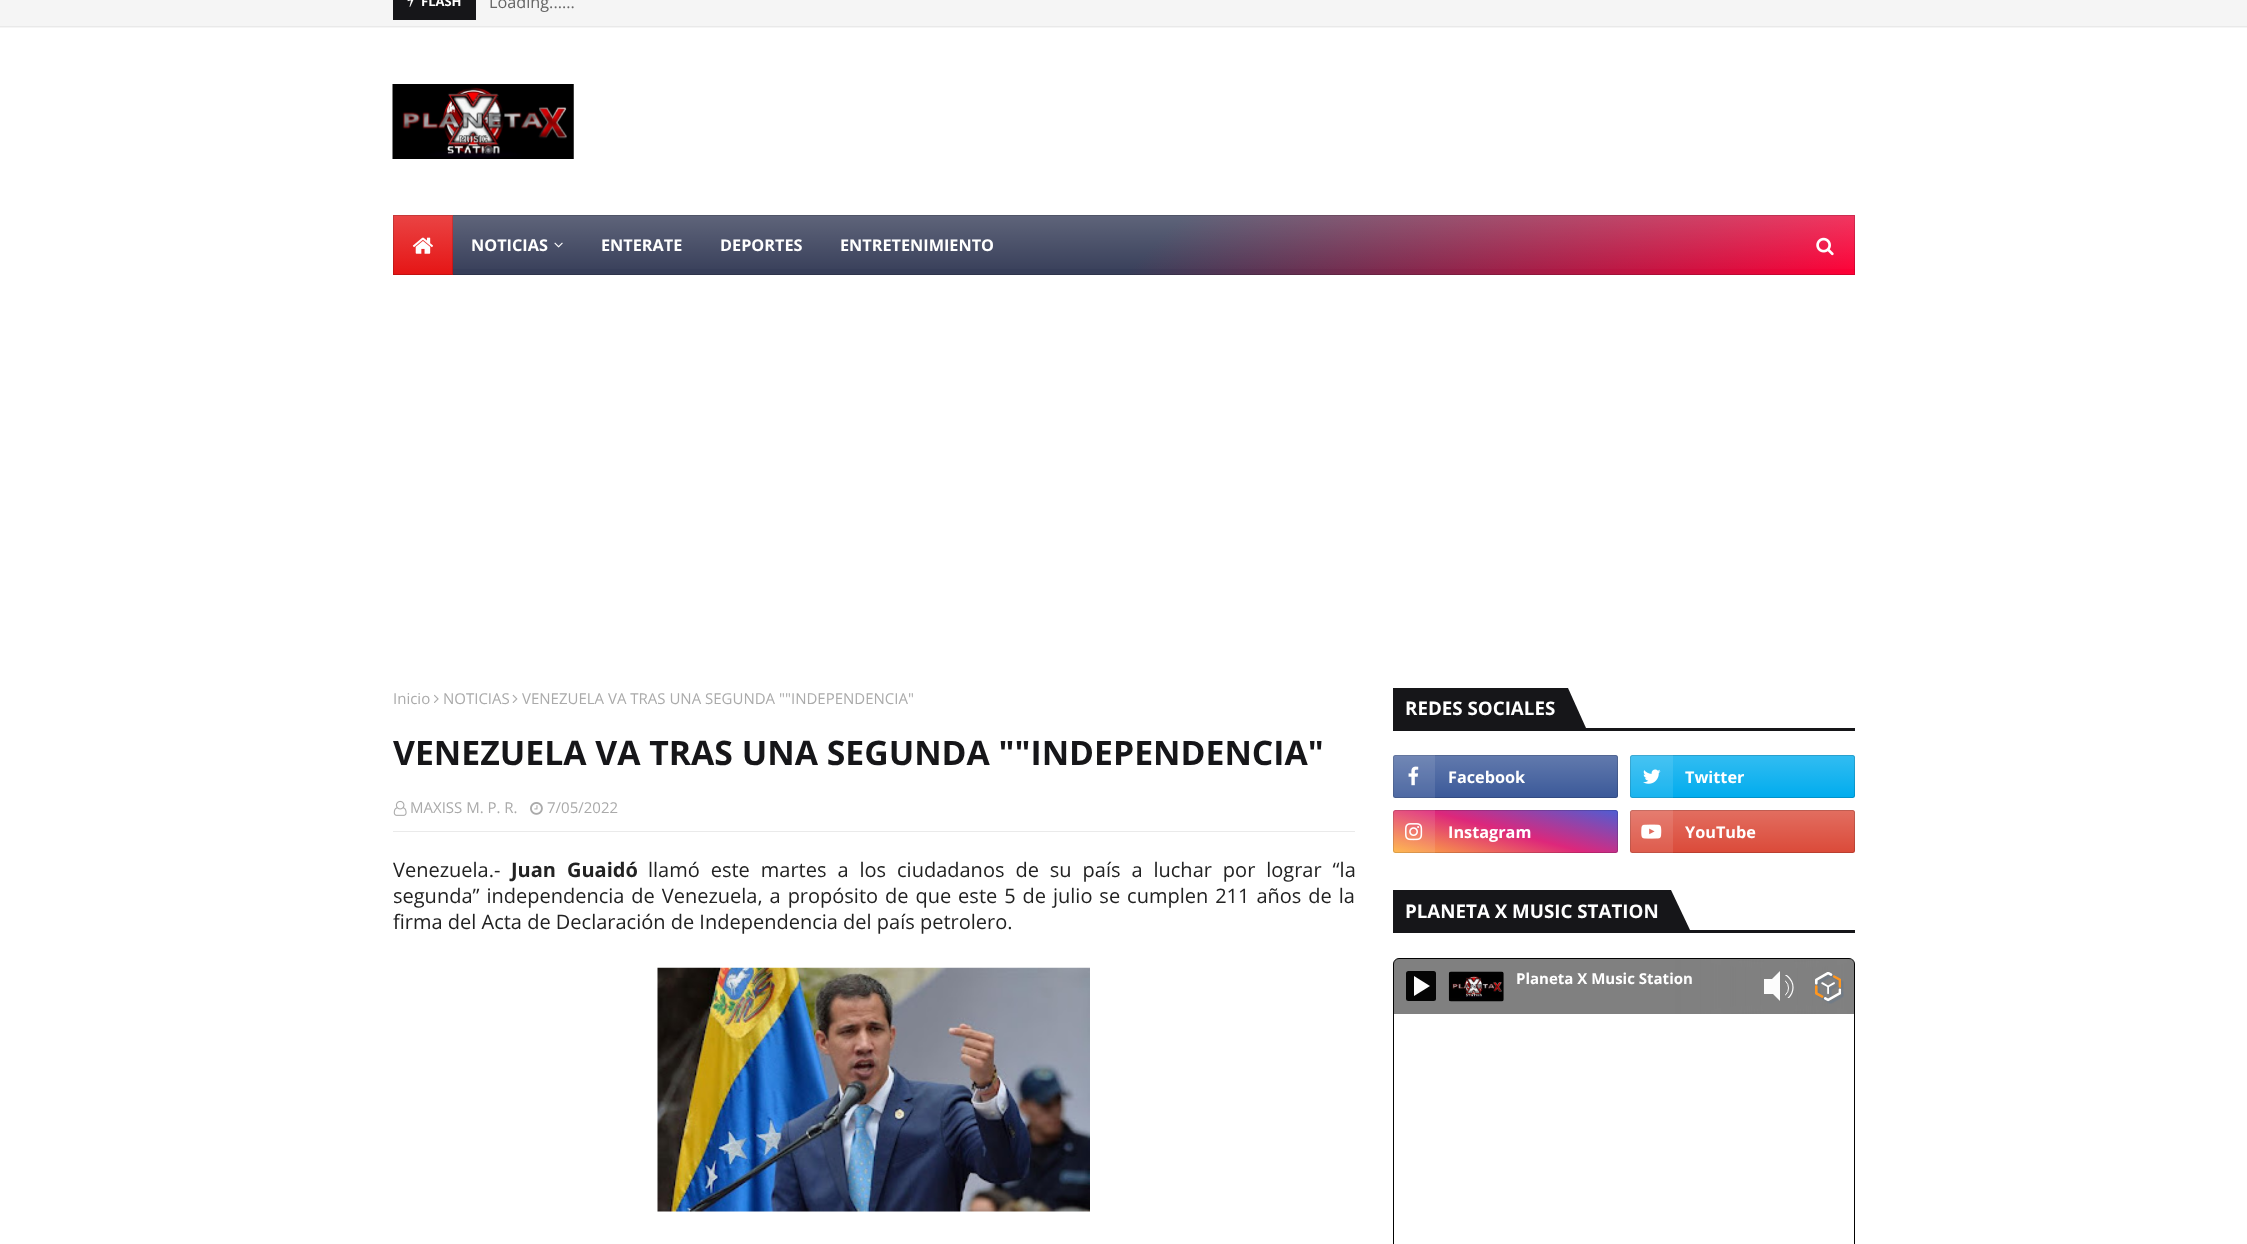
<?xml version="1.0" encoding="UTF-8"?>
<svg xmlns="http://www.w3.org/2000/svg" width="2247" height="1244">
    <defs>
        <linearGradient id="g1" gradientUnits="userSpaceOnUse" x1="743" y1="-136" x2="1504" y2="626"><stop offset="0.52" stop-color="#373E59"/><stop offset="1" stop-color="#FF0036"/></linearGradient>
        <linearGradient id="g2" gradientUnits="userSpaceOnUse" x1="1124" y1="215" x2="1124" y2="275"><stop offset="0" stop-color="#FFFFFF" stop-opacity="0.2"/><stop offset="1" stop-color="#FFFFFF" stop-opacity="0"/></linearGradient>
        <linearGradient id="g3" gradientUnits="userSpaceOnUse" x1="423" y1="215" x2="423" y2="275"><stop offset="0" stop-color="#EA4444"/><stop offset="1" stop-color="#E51515"/></linearGradient>
        <linearGradient id="g4" gradientUnits="userSpaceOnUse" x1="1505" y1="755" x2="1505" y2="798"><stop offset="0" stop-color="#FFFFFF" stop-opacity="0.2"/><stop offset="1" stop-color="#FFFFFF" stop-opacity="0"/></linearGradient>
        <linearGradient id="g5" gradientUnits="userSpaceOnUse" x1="1743" y1="755" x2="1743" y2="798"><stop offset="0" stop-color="#FFFFFF" stop-opacity="0.2"/><stop offset="1" stop-color="#FFFFFF" stop-opacity="0"/></linearGradient>
        <linearGradient id="g6" gradientUnits="userSpaceOnUse" x1="1492" y1="879" x2="1518" y2="783"><stop offset="0" stop-color="#FFB13D"/><stop offset="0.5" stop-color="#DD277B"/><stop offset="1" stop-color="#4D5ED4"/></linearGradient>
        <linearGradient id="g7" gradientUnits="userSpaceOnUse" x1="1743" y1="810" x2="1743" y2="853"><stop offset="0" stop-color="#FFFFFF" stop-opacity="0.2"/><stop offset="1" stop-color="#FFFFFF" stop-opacity="0"/></linearGradient>
        <clipPath id="clip1"><rect x="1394" y="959" width="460" height="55"/></clipPath>
        <clipPath id="clip2"><path d="M 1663 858 H 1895 V 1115 H 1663 Z M 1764 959 H 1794 V 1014 H 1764 Z" clip-rule="evenodd"/></clipPath>
        <filter id="blur1" x="-50%" y="-200%" width="200%" height="500%"><feGaussianBlur stdDeviation="20"/></filter>
        <clipPath id="clip3"><rect x="1785" y="975" width="9" height="23"/></clipPath>
    </defs>
    <rect width="100%" height="100%" fill="#FFFFFF"/>
    <rect x="0" y="0" width="2247" height="28" fill="#F5F5F5"/>
    <rect x="0" y="26" width="2247" height="1" fill="#E9E9E9"/>
    <rect x="393" y="0" width="83" height="20" fill="#161619"/>
    <image x="407" y="0" width="7" height="7" href="img_01.png"/>
    <text x="421" y="6" font-family="Open Sans" font-size="13" font-weight="700" fill="#FFFFFF">FLASH</text>
    <text x="489" y="8" font-family="Open Sans" font-size="16.25" fill="#656565">Loading......</text>
    <image x="392" y="84" width="182" height="75" href="img_02.png"/>
    <rect x="453" y="215" width="1402" height="60" fill="url(#g1)"/>
    <rect x="453" y="215" width="1402" height="54" fill="url(#g2)"/>
    <rect x="393.5" y="215.5" width="1461" height="59" fill="none" stroke="#000000" stroke-opacity="0.15"/>
    <rect x="393" y="215" width="60" height="60" fill="url(#g3)"/>
    <rect x="393.5" y="215.5" width="59" height="59" fill="none" stroke="#000000" stroke-opacity="0.15"/>
    <image x="412" y="237" width="21" height="17" href="img_03.png"/>
    <text x="471" y="251" font-family="Open Sans" font-size="16.25" font-weight="700" fill="#FFFFFF">NOTICIAS</text>
    <image x="554" y="242" width="9" height="6" href="img_04.png"/>
    <text x="601" y="251" font-family="Open Sans" font-size="16.25" font-weight="700" fill="#FFFFFF">ENTERATE</text>
    <text x="720" y="251" font-family="Open Sans" font-size="16.25" font-weight="700" fill="#FFFFFF">DEPORTES</text>
    <text x="840" y="251" font-family="Open Sans" font-size="16.25" font-weight="700" fill="#FFFFFF">ENTRETENIMIENTO</text>
    <image x="1816" y="237" width="18" height="19" href="img_05.png"/>
    <text x="393" y="704" font-family="Open Sans" font-size="15" fill="#AAAAAA">Inicio</text>
    <image x="434" y="694" width="5" height="9" href="img_06.png"/>
    <text x="443" y="704" font-family="Open Sans" font-size="15" fill="#AAAAAA">NOTICIAS</text>
    <image x="512" y="694" width="6" height="9" href="img_07.png"/>
    <text x="522" y="704" font-family="Open Sans" font-size="15" fill="#AAAAAA">VENEZUELA VA TRAS UNA SEGUNDA ""INDEPENDENCIA"</text>
    <text x="393" y="765" font-family="Open Sans" font-size="33.75" font-weight="700" fill="#161619">VENEZUELA VA TRAS UNA SEGUNDA ""INDEPENDENCIA"</text>
    <rect x="393" y="831" width="962" height="1" fill="#EAEAEA"/>
    <image x="393" y="800" width="14" height="16" href="img_08.png"/>
    <text x="410" y="813" font-family="Open Sans" font-size="15" fill="#AAAAAA">MAXISS M. P. R.</text>
    <image x="530" y="802" width="13" height="13" href="img_09.png"/>
    <text x="547" y="813" font-family="Open Sans" font-size="15" fill="#AAAAAA">7/05/2022</text>
    <text x="393" y="877" font-family="Open Sans" font-size="20" fill="#222222">Venezuela.-</text>
    <text x="511" y="877" word-spacing="5.75" font-family="Open Sans" font-size="20" font-weight="700" fill="#222222">Juan Guaidó</text>
    <text x="648" y="877" word-spacing="5.75" font-family="Open Sans" font-size="20" fill="#222222">llamó este martes a los ciudadanos de su país a luchar por lograr “la</text>
    <text font-family="Open Sans" font-size="20" fill="#222222">
        <tspan x="393" y="903" word-spacing="1.75">segunda” independencia de Venezuela, a propósito de que este 5 de julio se cumplen 211 años de la</tspan>
        <tspan x="393" y="929">firma del Acta de Declaración de Independencia del país petrolero.</tspan>
    </text>
    <image x="657" y="967" width="433" height="245" href="img_10.png"/>
    <rect x="1393" y="728" width="462" height="3" fill="#161619"/>
    <rect x="1393" y="688" width="175" height="40" fill="#161619"/>
    <text x="1405" y="715" font-family="Open Sans" font-size="18.75" font-weight="700" fill="#FFFFFF">REDES SOCIALES</text>
    <path d="M 1568 728 V 688 L 1586 728 Z" fill="#161619"/>
    <rect x="1393" y="755" width="225" height="43" rx="2.5" fill="#3B5999"/>
    <rect x="1393" y="755" width="225" height="43" rx="2.5" fill="url(#g4)"/>
    <rect x="1393.5" y="755.5" width="224" height="42" rx="2" fill="none" stroke="#000000" stroke-opacity="0.15"/>
    <rect x="1393" y="755" width="42" height="43" fill="#FFFFFF" fill-opacity="0.1"/>
    <image x="1408" y="766" width="11" height="20" href="img_11.png"/>
    <text x="1448" y="783" font-family="Open Sans" font-size="16.25" font-weight="700" fill="#FFFFFF">Facebook</text>
    <rect x="1630" y="755" width="225" height="43" rx="2.5" fill="#00ACEE"/>
    <rect x="1630" y="755" width="225" height="43" rx="2.5" fill="url(#g5)"/>
    <rect x="1630.5" y="755.5" width="224" height="42" rx="2" fill="none" stroke="#000000" stroke-opacity="0.15"/>
    <rect x="1630" y="755" width="43" height="43" fill="#FFFFFF" fill-opacity="0.1"/>
    <image x="1643" y="769" width="18" height="15" href="img_12.png"/>
    <text x="1685" y="783" font-family="Open Sans" font-size="16.25" font-weight="700" fill="#FFFFFF">Twitter</text>
    <rect x="1393" y="810" width="225" height="43" rx="2.5" fill="url(#g6)"/>
    <rect x="1393.5" y="810.5" width="224" height="42" rx="2" fill="none" stroke="#000000" stroke-opacity="0.15"/>
    <rect x="1393" y="810" width="42" height="43" fill="#FFFFFF" fill-opacity="0.1"/>
    <image x="1405" y="823" width="18" height="18" href="img_13.png"/>
    <text x="1448" y="838" font-family="Open Sans" font-size="16.25" font-weight="700" fill="#FFFFFF">Instagram</text>
    <rect x="1630" y="810" width="225" height="43" rx="2.5" fill="#DB4A39"/>
    <rect x="1630" y="810" width="225" height="43" rx="2.5" fill="url(#g7)"/>
    <rect x="1630.5" y="810.5" width="224" height="42" rx="2" fill="none" stroke="#000000" stroke-opacity="0.15"/>
    <rect x="1630" y="810" width="43" height="43" fill="#FFFFFF" fill-opacity="0.1"/>
    <image x="1641" y="824" width="21" height="15" href="img_14.png"/>
    <text x="1685" y="838" font-family="Open Sans" font-size="16.25" font-weight="700" fill="#FFFFFF">YouTube</text>
    <rect x="1393" y="930" width="462" height="3" fill="#161619"/>
    <rect x="1393" y="890" width="278" height="40" fill="#161619"/>
    <text x="1405" y="918" font-family="Open Sans" font-size="18.75" font-weight="700" fill="#FFFFFF">PLANETA X MUSIC STATION</text>
    <path d="M 1671 930 V 890 L 1690 930 Z" fill="#161619"/>
    <rect x="1393.5" y="958.5" width="461" height="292" rx="5.5" fill="#808080" stroke="#030303"/>
    <rect x="1406" y="971" width="30" height="30" rx="2.5" fill="#050505"/>
    <path d="M 1414 996 V 976 L 1430 986 Z" fill="#FCFCFC"/>
    <image x="1448" y="971" width="56" height="31" href="img_15.png"/>
    <text x="1516" y="984" font-family="Open Sans" font-size="15" font-weight="700" fill="#FFFFFF">Planeta X Music Station</text>
    <rect x="1394" y="1014" width="460" height="230" fill="#FFFFFF"/>
    <g clip-path="url(#clip1)">
        <g clip-path="url(#clip2)">
            <rect x="1724" y="919" width="110" height="135" fill="#808080" filter="url(#blur1)"/>
        </g>
    </g>
    <rect x="1764" y="979" width="9" height="15" fill="#FCFCFC"/>
    <path d="M 1780 971 V 1001 L 1765 986 Z" fill="#FCFCFC"/>
    <g clip-path="url(#clip3)">
        <path d="M 1775 972 C 1785 972 1793 979 1793 987.5 C 1793 996 1785 1003 1775 1003 C 1765 1003 1757 996 1757 987.5 C 1757 979 1765 972 1775 972 Z" fill="none" stroke="#FCFCFC" stroke-width="1.2"/>
        <circle cx="1779" cy="988" r="9.5" fill="none" stroke="#FCFCFC"/>
    </g>
    <image x="1815" y="972" width="29" height="32" href="img_16.png"/>
</svg>
